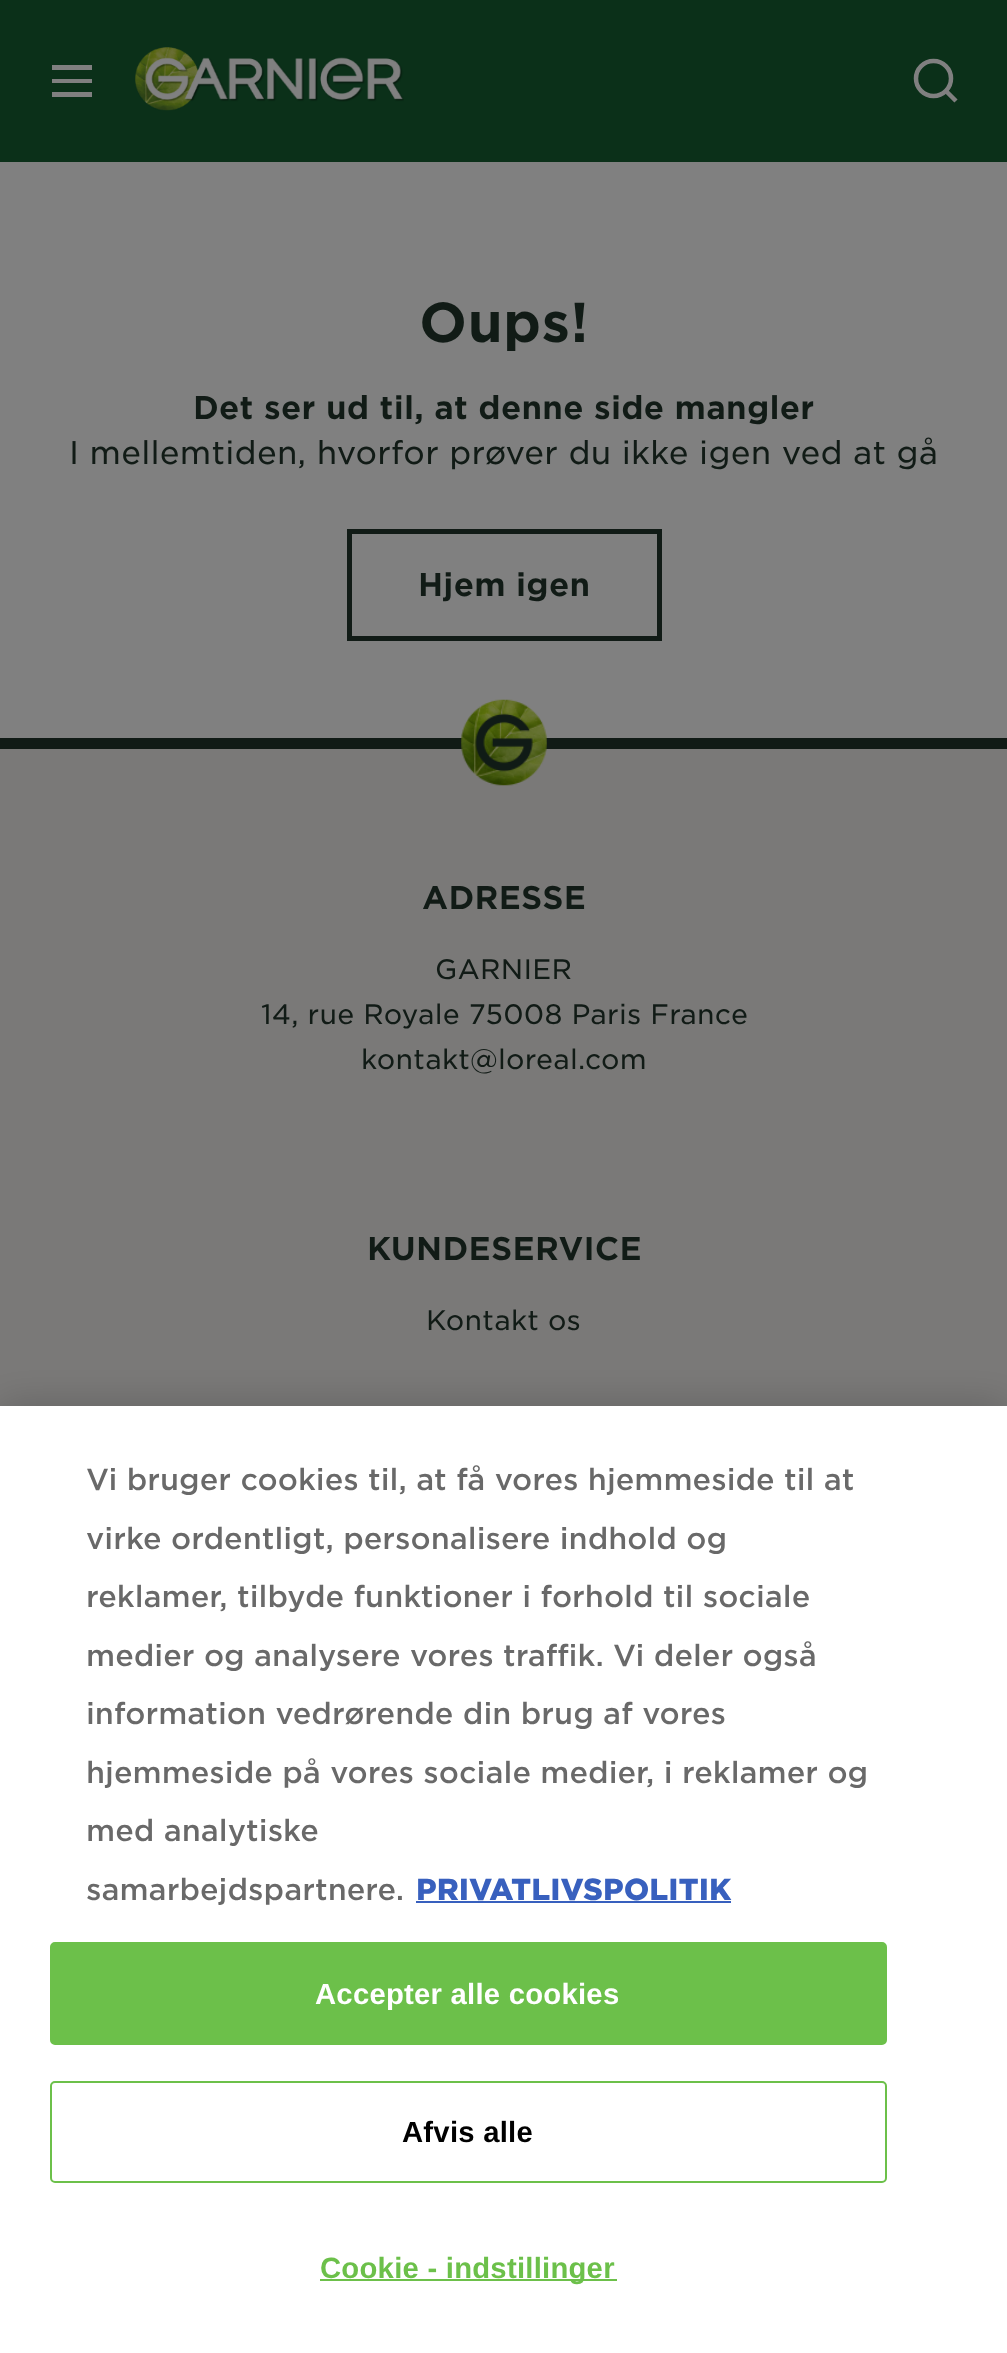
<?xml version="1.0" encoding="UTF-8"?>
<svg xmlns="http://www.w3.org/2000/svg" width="1007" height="2353">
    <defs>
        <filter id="blur1" x="-50%" y="-200%" width="200%" height="500%"><feGaussianBlur stdDeviation="20"/></filter>
    </defs>
    <rect width="100%" height="100%" fill="#808080"/>
    <rect x="0" y="0" width="1007" height="162" fill="#0B3019"/>
    <rect x="52" y="65" width="40" height="5" fill="#808080"/>
    <rect x="52" y="79" width="40" height="4" fill="#808080"/>
    <rect x="52" y="92" width="40" height="5" fill="#808080"/>
    <image x="135" y="47" width="269" height="64" href="img_01.png"/>
    <circle cx="933.5" cy="78.5" r="17.5" fill="none" stroke="#808080" stroke-width="4.5"/>
    <path d="M 946 91 L 956 101" fill="none" stroke="#808080" stroke-width="4.5" stroke-linejoin="round"/>
    <text x="419" y="342" font-family="'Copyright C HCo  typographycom'" font-size="54" letter-spacing="0.23" fill="#111B16">Oups!</text>
    <text x="193" y="419" font-family="'Copyright C HCo  typographycom'" font-size="31.5" letter-spacing="0.23" fill="#111B16">Det ser ud til, at denne side mangler</text>
    <text x="69" y="464" font-family="'Copyright C HCo  typographycom'" font-size="31.5" font-weight="300" letter-spacing="0.23" fill="#111B16">I mellemtiden, hvorfor prøver du ikke igen ved at gå</text>
    <rect x="349.5" y="531.5" width="310" height="107" fill="none" stroke="#111B16" stroke-width="5"/>
    <text x="418" y="596" font-family="'Copyright C HCo  typographycom'" font-size="31.5" letter-spacing="0.23" fill="#111B16">Hjem igen</text>
    <rect x="0" y="749" width="1007" height="657" fill="#7A7978"/>
    <rect x="0" y="738" width="1007" height="11" fill="#111B16"/>
    <image x="461" y="699" width="86" height="87" href="img_02.png"/>
    <text x="422" y="909" font-family="'Copyright C HCo  typographycom'" font-size="31.5" letter-spacing="0.23" fill="#111B16">ADRESSE</text>
    <text x="435" y="979" font-family="'Copyright C HCo  typographycom'" font-size="27" font-weight="300" letter-spacing="0.23" fill="#111B16">GARNIER</text>
    <text x="261" y="1024" font-family="'Copyright C HCo  typographycom'" font-size="27" font-weight="300" letter-spacing="0.23" fill="#111B16">14, rue Royale 75008 Paris France</text>
    <text x="361" y="1069" font-family="'Copyright C HCo  typographycom'" font-size="27" font-weight="300" letter-spacing="0.23" fill="#111B16">kontakt@loreal.com</text>
    <text x="367" y="1260" font-family="'Copyright C HCo  typographycom'" font-size="31.5" letter-spacing="0.23" fill="#111B16">KUNDESERVICE</text>
    <text x="426" y="1330" font-family="'Copyright C HCo  typographycom'" font-size="27" font-weight="300" letter-spacing="0.23" fill="#111B16">Kontakt os</text>
    <rect x="0" y="1406" width="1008" height="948" fill="#000000" fill-opacity="0.2" filter="url(#blur1)"/>
    <rect x="0" y="1406" width="1007" height="947" fill="#FFFFFF"/>
    <text x="86" y="1490" font-family="'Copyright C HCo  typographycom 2'" font-size="29.25" font-weight="300" fill="#696969">Vi bruger cookies til, at få vores hjemmeside til at</text>
    <text font-family="'Copyright C HCo  typographycom 2'" font-size="29.25" font-weight="300" fill="#696969">
        <tspan x="86" y="1549">virke ordentligt, personalisere indhold og</tspan>
        <tspan x="86" y="1607">reklamer, tilbyde funktioner i forhold til sociale</tspan>
    </text>
    <text font-family="'Copyright C HCo  typographycom 2'" font-size="29.25" font-weight="300" fill="#696969">
        <tspan x="86" y="1666">medier og analysere vores traffik. Vi deler også</tspan>
        <tspan x="86" y="1724">information vedrørende din brug af vores</tspan>
    </text>
    <text font-family="'Copyright C HCo  typographycom 2'" font-size="29.25" font-weight="300" fill="#696969">
        <tspan x="86" y="1783">hjemmeside på vores sociale medier, i reklamer og</tspan>
        <tspan x="86" y="1841">med analytiske</tspan>
    </text>
    <text x="86" y="1900" font-family="'Copyright C HCo  typographycom 2'" font-size="29.25" font-weight="300" fill="#696969">samarbejdspartnere.</text>
    <text x="416" y="1900" font-family="'Copyright C HCo  typographycom 2'" font-size="29.25" fill="#3860BE">PRIVATLIVSPOLITIK</text>
    <rect x="416" y="1901" width="315" height="2" fill="#3860BE"/>
    <rect x="51" y="1943" width="835" height="101" rx="4" fill="#6CC04A" stroke="#6CC04A" stroke-width="2"/>
    <text x="315" y="2004" font-family="Liberation Sans" font-size="29.25" font-weight="700" letter-spacing="0.25" fill="#FFFFFF">Accepter alle cookies</text>
    <rect x="51" y="2082" width="835" height="100" rx="4" fill="none" stroke="#6CC04A" stroke-width="2"/>
    <text x="402" y="2142" font-family="Liberation Sans" font-size="29.25" font-weight="700" letter-spacing="0.25" fill="#000000">Afvis alle</text>
    <rect x="320" y="2279" width="297" height="2" fill="#6CC04A"/>
    <text x="320" y="2278" font-family="Liberation Sans" font-size="29.25" font-weight="700" letter-spacing="0.25" fill="#6CC04A">Cookie - indstillinger</text>
</svg>
